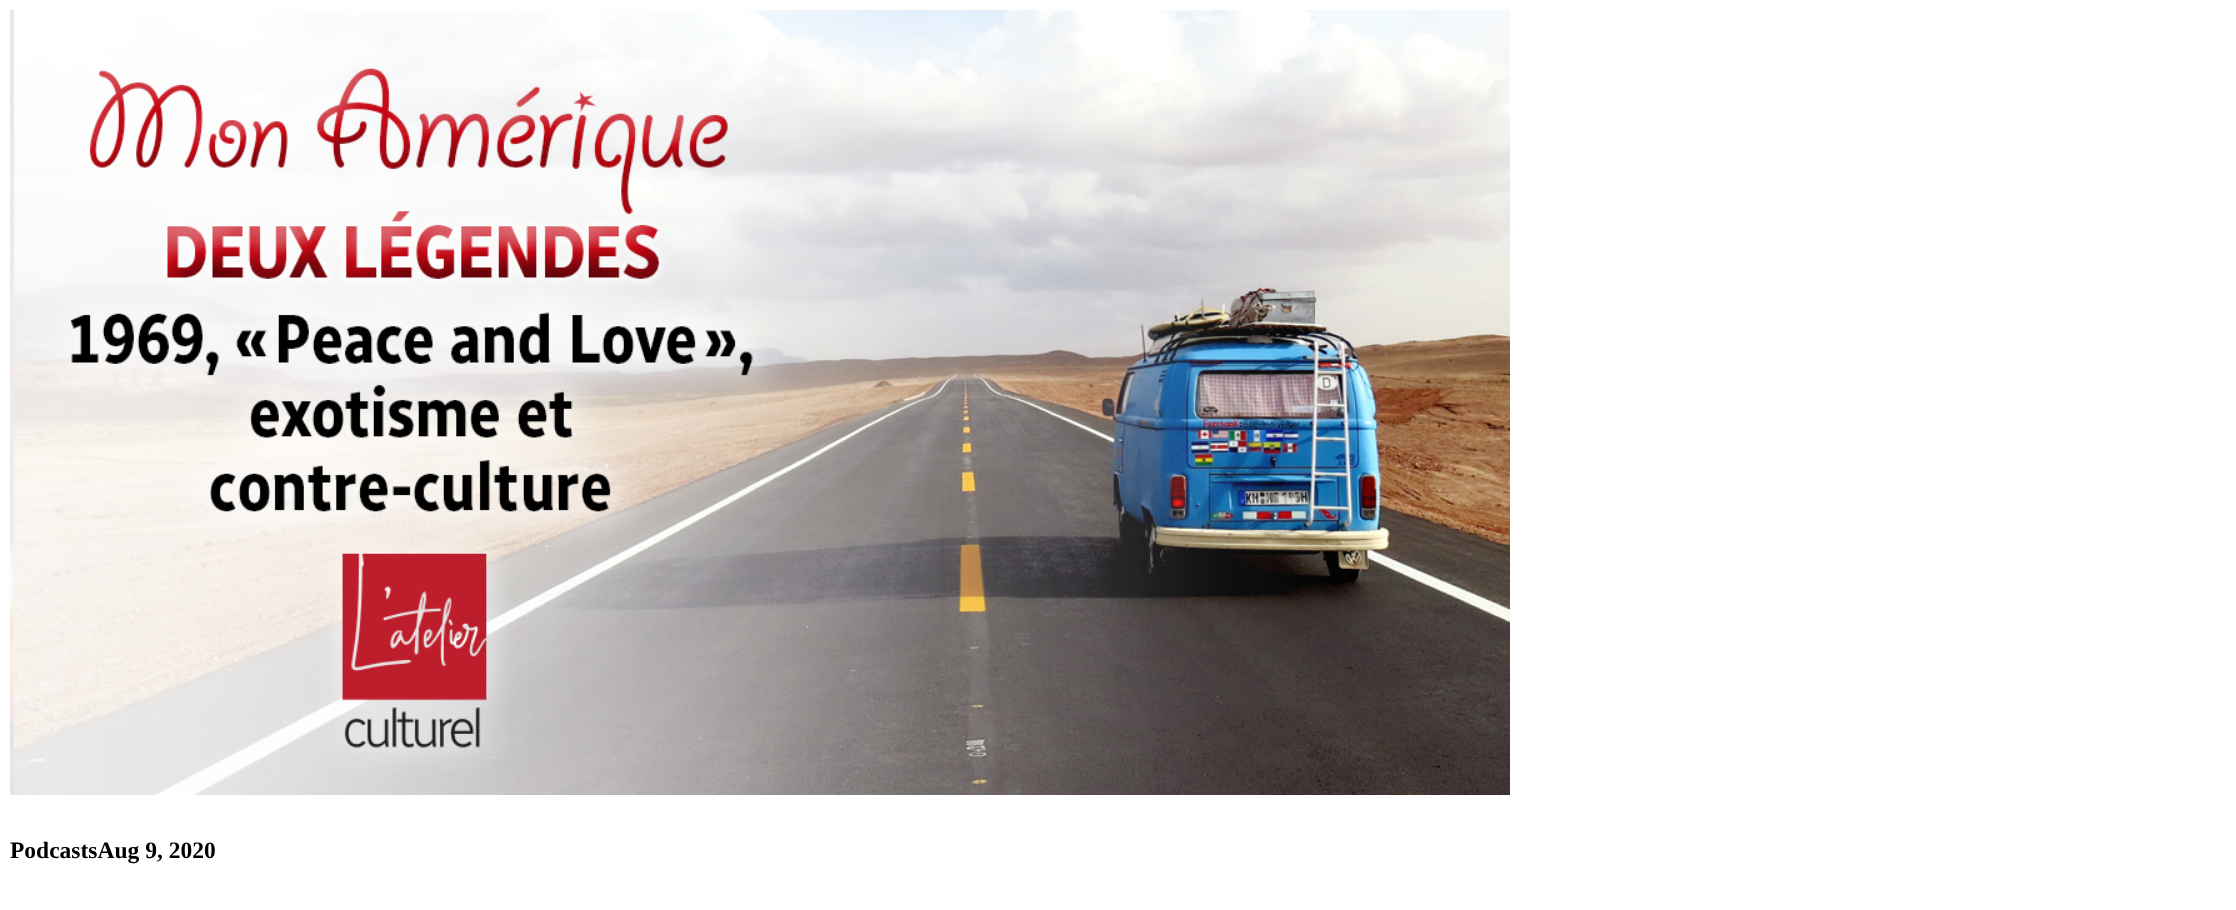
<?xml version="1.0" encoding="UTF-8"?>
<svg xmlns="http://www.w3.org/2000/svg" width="2236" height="910">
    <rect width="100%" height="100%" fill="#FFFFFF"/>
    <image x="10" y="10" width="1500" height="785" href="img_01.png"/>
    <text x="10" y="858" font-family="Liberation Serif" font-size="23.5" font-weight="700" fill="#000000">PodcastsAug 9, 2020</text>
</svg>
